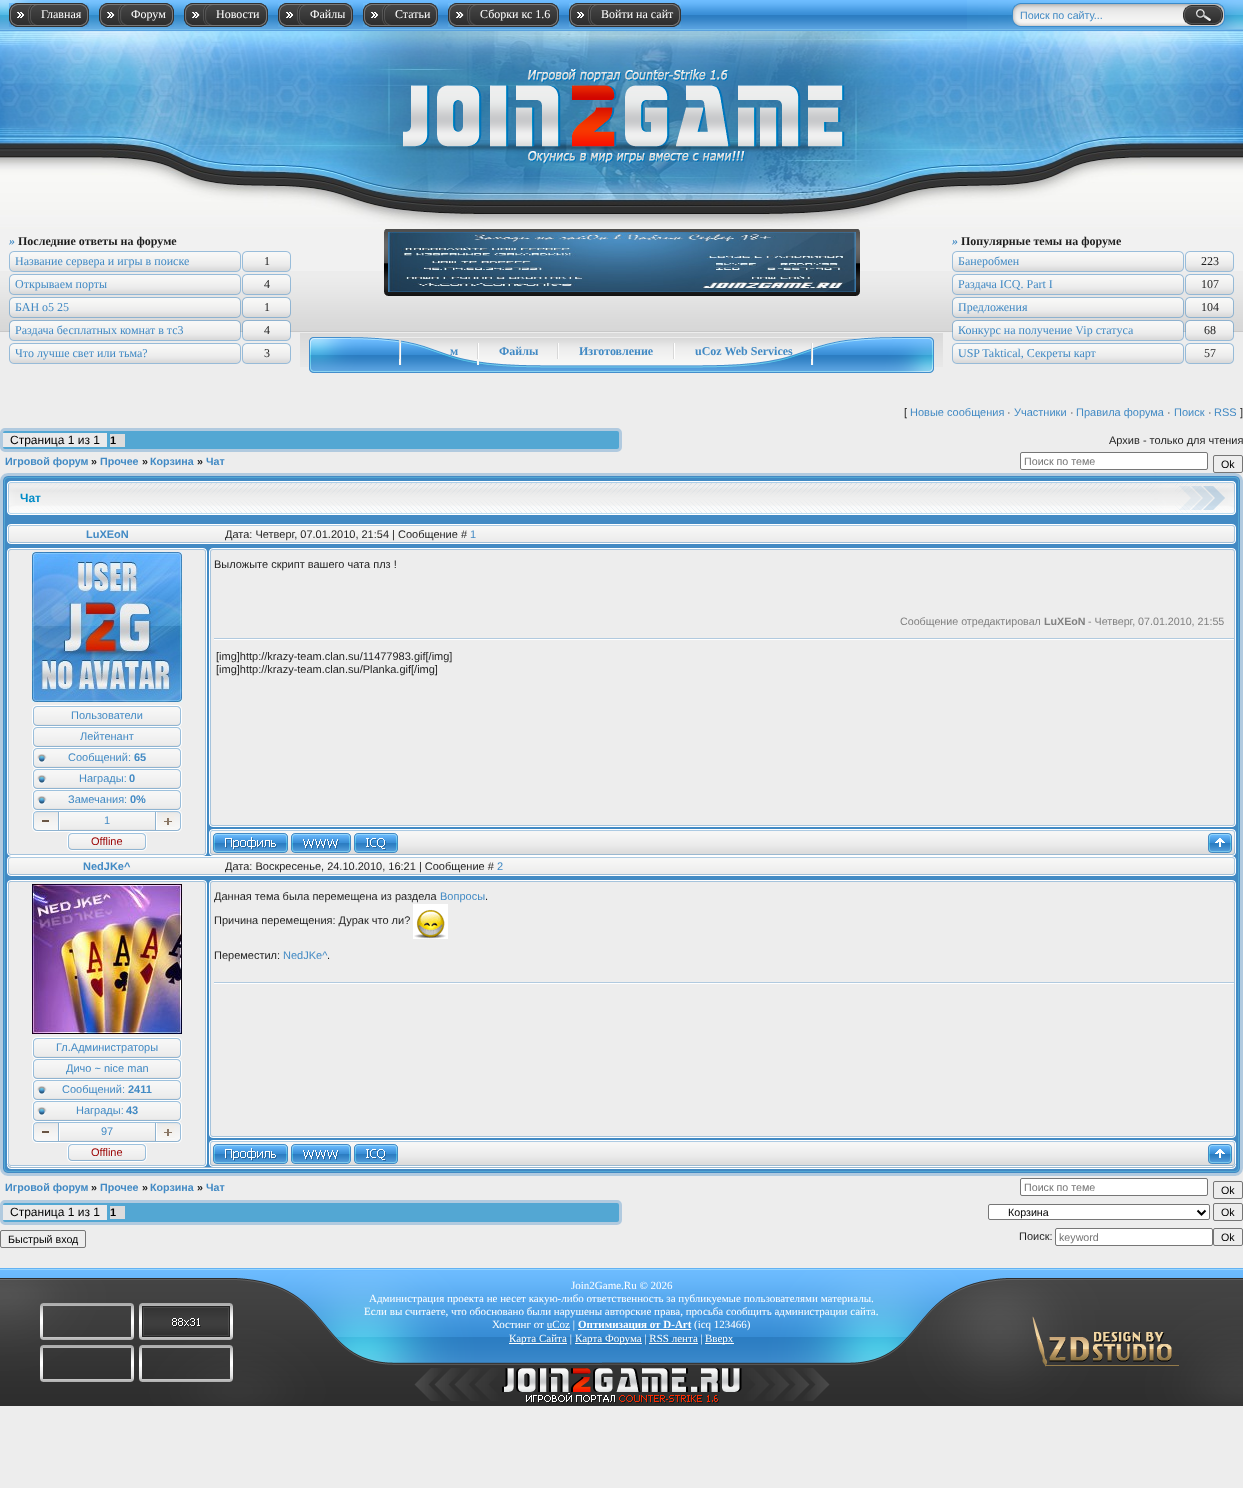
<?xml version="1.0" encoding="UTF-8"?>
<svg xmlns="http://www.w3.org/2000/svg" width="1243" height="1488">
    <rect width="100%" height="100%" fill="#EDEDED"/>
    <image x="0" y="0" width="1243" height="30" href="img_01.png"/>
    <rect x="0" y="30" width="1243" height="1" fill="#59A1DF"/>
    <image x="967" y="0" width="276" height="29" href="img_02.png"/>
    <image x="9" y="3" width="72" height="24" href="img_03.png"/>
    <image x="81" y="3" width="8" height="24" href="img_04.png"/>
    <text x="41" y="18" font-family="Liberation Serif" font-size="12" fill="#FFFFFF">Главная</text>
    <image x="99" y="3" width="67" height="24" href="img_05.png"/>
    <image x="166" y="3" width="8" height="24" href="img_06.png"/>
    <text x="131" y="18" font-family="Liberation Serif" font-size="12" fill="#FFFFFF">Форум</text>
    <image x="184" y="3" width="76" height="24" href="img_07.png"/>
    <image x="260" y="3" width="8" height="24" href="img_06.png"/>
    <text x="216" y="18" font-family="Liberation Serif" font-size="12" fill="#FFFFFF">Новости</text>
    <image x="278" y="3" width="67" height="24" href="img_08.png"/>
    <image x="345" y="3" width="8" height="24" href="img_04.png"/>
    <text x="310" y="18" font-family="Liberation Serif" font-size="12" fill="#FFFFFF">Файлы</text>
    <image x="363" y="3" width="67" height="24" href="img_09.png"/>
    <image x="430" y="3" width="8" height="24" href="img_04.png"/>
    <text x="395" y="18" font-family="Liberation Serif" font-size="12" fill="#FFFFFF">Статьи</text>
    <image x="448" y="3" width="103" height="24" href="img_10.png"/>
    <image x="551" y="3" width="8" height="24" href="img_06.png"/>
    <text x="480" y="18" font-family="Liberation Serif" font-size="12" fill="#FFFFFF">Сборки кс 1.6</text>
    <image x="569" y="3" width="104" height="24" href="img_11.png"/>
    <image x="673" y="3" width="8" height="24" href="img_04.png"/>
    <text x="601" y="18" font-family="Liberation Serif" font-size="12" fill="#FFFFFF">Войти на сайт</text>
    <image x="1012" y="3" width="213" height="24" href="img_12.png"/>
    <text x="1020" y="19" font-family="Liberation Sans" font-size="10.7" fill="#428AC4">Поиск по сайту...</text>
    <image x="1183" y="5" width="40" height="20" href="img_13.png"/>
    <rect x="0" y="229" width="1243" height="42" fill="#F1F1F1"/>
    <rect x="0" y="331" width="1243" height="1" fill="#C8C8C8"/>
    <image x="0" y="271" width="1243" height="60" href="img_14.png"/>
    <image x="0" y="31" width="1243" height="198" href="img_15.png"/>
    <image x="396" y="69" width="451" height="95" href="img_16.png"/>
    <text x="9" y="245" font-family="Liberation Serif" font-size="12" font-weight="700" font-style="italic" fill="#428AC4">»</text>
    <text x="18" y="245" font-family="Liberation Serif" font-size="12" font-weight="700" fill="#1E1E1E">Последние ответы на форуме</text>
    <image x="9" y="251" width="232" height="21" href="img_17.png"/>
    <text x="15" y="265" font-family="Liberation Serif" font-size="12" fill="#428AC4">Название сервера и игры в поиске</text>
    <image x="242" y="251" width="49" height="21" href="img_18.png"/>
    <text x="264" y="265" font-family="Liberation Serif" font-size="12" fill="#1E1E1E">1</text>
    <image x="9" y="274" width="232" height="21" href="img_19.png"/>
    <text x="15" y="288" font-family="Liberation Serif" font-size="12" fill="#428AC4">Открываем порты</text>
    <image x="242" y="274" width="49" height="21" href="img_20.png"/>
    <text x="264" y="288" font-family="Liberation Serif" font-size="12" fill="#1E1E1E">4</text>
    <image x="9" y="297" width="232" height="21" href="img_21.png"/>
    <text x="15" y="311" font-family="Liberation Serif" font-size="12" fill="#428AC4">БАН о5 25</text>
    <image x="242" y="297" width="49" height="21" href="img_22.png"/>
    <text x="264" y="311" font-family="Liberation Serif" font-size="12" fill="#1E1E1E">1</text>
    <image x="9" y="320" width="232" height="21" href="img_23.png"/>
    <text x="15" y="334" font-family="Liberation Serif" font-size="12" fill="#428AC4">Раздача бесплатных комнат в тс3</text>
    <image x="242" y="320" width="49" height="21" href="img_24.png"/>
    <text x="264" y="334" font-family="Liberation Serif" font-size="12" fill="#1E1E1E">4</text>
    <image x="9" y="343" width="232" height="21" href="img_25.png"/>
    <text x="15" y="357" font-family="Liberation Serif" font-size="12" fill="#428AC4">Что лучше свет или тьма?</text>
    <image x="242" y="343" width="49" height="21" href="img_26.png"/>
    <text x="264" y="357" font-family="Liberation Serif" font-size="12" fill="#1E1E1E">3</text>
    <image x="384" y="229" width="476" height="67" href="img_27.png"/>
    <image x="388" y="232" width="468" height="60" href="img_28.png"/>
    <text x="952" y="245" font-family="Liberation Serif" font-size="12" font-weight="700" font-style="italic" fill="#428AC4">»</text>
    <text x="961" y="245" font-family="Liberation Serif" font-size="12" font-weight="700" fill="#1E1E1E">Популярные темы на форуме</text>
    <image x="952" y="251" width="232" height="21" href="img_17.png"/>
    <text x="958" y="265" font-family="Liberation Serif" font-size="12" fill="#428AC4">Банеробмен</text>
    <image x="1185" y="251" width="49" height="21" href="img_18.png"/>
    <text x="1201" y="265" font-family="Liberation Serif" font-size="12" fill="#1E1E1E">223</text>
    <image x="952" y="274" width="232" height="21" href="img_19.png"/>
    <text x="958" y="288" font-family="Liberation Serif" font-size="12" fill="#428AC4">Раздача ICQ. Part I</text>
    <image x="1185" y="274" width="49" height="21" href="img_20.png"/>
    <text x="1201" y="288" font-family="Liberation Serif" font-size="12" fill="#1E1E1E">107</text>
    <image x="952" y="297" width="232" height="21" href="img_21.png"/>
    <text x="958" y="311" font-family="Liberation Serif" font-size="12" fill="#428AC4">Предложения</text>
    <image x="1185" y="297" width="49" height="21" href="img_22.png"/>
    <text x="1201" y="311" font-family="Liberation Serif" font-size="12" fill="#1E1E1E">104</text>
    <image x="952" y="320" width="232" height="21" href="img_23.png"/>
    <text x="958" y="334" font-family="Liberation Serif" font-size="12" fill="#428AC4">Конкурс на получение Vip статуса</text>
    <image x="1185" y="320" width="49" height="21" href="img_24.png"/>
    <text x="1204" y="334" font-family="Liberation Serif" font-size="12" fill="#1E1E1E">68</text>
    <image x="952" y="343" width="232" height="21" href="img_25.png"/>
    <text x="958" y="357" font-family="Liberation Serif" font-size="12" fill="#428AC4">USP Taktical, Секреты карт</text>
    <image x="1185" y="343" width="49" height="21" href="img_26.png"/>
    <text x="1204" y="357" font-family="Liberation Serif" font-size="12" fill="#1E1E1E">57</text>
    <image x="300" y="333" width="643" height="34" href="img_29.png"/>
    <image x="309" y="337" width="393" height="36" href="img_30.png"/>
    <image x="702" y="337" width="232" height="36" href="img_31.png"/>
    <image x="399" y="340" width="3" height="25" href="img_32.png"/>
    <text x="450" y="355" font-family="Liberation Serif" font-size="12" font-weight="700" fill="#428AC4">м</text>
    <image x="477" y="343" width="2" height="22" href="img_33.png"/>
    <text x="499" y="355" font-family="Liberation Serif" font-size="12" font-weight="700" fill="#428AC4">Файлы</text>
    <image x="557" y="343" width="2" height="16" href="img_34.png"/>
    <text x="579" y="355" font-family="Liberation Serif" font-size="12" font-weight="700" fill="#428AC4">Изготовление</text>
    <image x="673" y="343" width="2" height="16" href="img_35.png"/>
    <text x="695" y="355" font-family="Liberation Serif" font-size="12" font-weight="700" fill="#428AC4">uCoz Web Services</text>
    <image x="811" y="343" width="3" height="22" href="img_36.png"/>
    <text x="904" y="416" font-family="Liberation Sans" font-size="11" fill="#1E1E1E">[</text>
    <text x="910" y="416" font-family="Liberation Sans" font-size="11" fill="#428AC4">Новые сообщения</text>
    <text x="1007" y="416" font-family="Liberation Sans" font-size="11" fill="#1E1E1E">·</text>
    <text x="1014" y="416" font-family="Liberation Sans" font-size="11" fill="#428AC4">Участники</text>
    <text x="1070" y="416" font-family="Liberation Sans" font-size="11" fill="#1E1E1E">·</text>
    <text x="1076" y="416" font-family="Liberation Sans" font-size="11" fill="#428AC4">Правила форума</text>
    <text x="1167" y="416" font-family="Liberation Sans" font-size="11" fill="#1E1E1E">·</text>
    <text x="1174" y="416" font-family="Liberation Sans" font-size="11" fill="#428AC4">Поиск</text>
    <text x="1208" y="416" font-family="Liberation Sans" font-size="11" fill="#1E1E1E">·</text>
    <text x="1214" y="416" font-family="Liberation Sans" font-size="11" fill="#428AC4">RSS</text>
    <text x="1240" y="416" font-family="Liberation Sans" font-size="11" fill="#1E1E1E">]</text>
    <rect x="1.5" y="429.5" width="619" height="21" rx="3.5" fill="#53A7D3" stroke="#B1CADF" stroke-width="3"/>
    <rect x="3" y="433" width="104" height="14" fill="#EAEAEB"/>
    <text x="10" y="444" font-family="Liberation Sans" font-size="12" fill="#000000">Страница 1 из 1</text>
    <rect x="110" y="434" width="15" height="13" fill="#DCDCDC"/>
    <text x="110" y="444" font-family="Liberation Sans" font-size="11" font-weight="700" fill="#000000">1</text>
    <text x="1109" y="444" font-family="Liberation Sans" font-size="11" fill="#1E1E1E">Архив - только для чтения</text>
    <text x="5" y="465" font-family="Liberation Sans" font-size="10.7" font-weight="700" fill="#428AC4">Игровой форум</text>
    <text x="91" y="465" font-family="Liberation Sans" font-size="10.7" font-weight="700" fill="#1E1E1E">»</text>
    <text x="100" y="465" font-family="Liberation Sans" font-size="10.7" font-weight="700" fill="#428AC4">Прочее</text>
    <text x="142" y="465" font-family="Liberation Sans" font-size="10.7" font-weight="700" fill="#1E1E1E">»</text>
    <text x="150" y="465" font-family="Liberation Sans" font-size="10.7" font-weight="700" fill="#428AC4">Корзина</text>
    <text x="197" y="465" font-family="Liberation Sans" font-size="10.7" font-weight="700" fill="#1E1E1E">»</text>
    <text x="206" y="465" font-family="Liberation Sans" font-size="10.7" font-weight="700" fill="#428AC4">Чат</text>
    <rect x="1020.5" y="452.5" width="187" height="17" rx="1.5" fill="#FFFFFF" stroke="#767676"/>
    <text x="1024" y="465" font-family="Liberation Sans" font-size="10.7" fill="#757575">Поиск по теме</text>
    <rect x="1213.5" y="455.5" width="29" height="17" rx="1.5" fill="none" stroke="#767676"/>
    <text x="1221" y="468" font-family="Liberation Sans" font-size="10.7" fill="#000000">Ok</text>
    <image x="0" y="518" width="7" height="647" href="img_37.png"/>
    <image x="1236" y="518" width="7" height="647" href="img_38.png"/>
    <image x="0" y="473" width="1166" height="45" href="img_39.png"/>
    <text x="20" y="502" font-family="Liberation Sans" font-size="12" font-weight="700" fill="#008BC7">Чат</text>
    <image x="1154" y="473" width="89" height="45" href="img_40.png"/>
    <rect x="5" y="518" width="1233" height="6" fill="#428AC4"/>
    <image x="11" y="524" width="1225" height="20" href="img_41.png"/>
    <rect x="7" y="544" width="1229" height="4" fill="#428AC4"/>
    <image x="7" y="524" width="4" height="20" href="img_42.png"/>
    <text x="86" y="538" font-family="Liberation Sans" font-size="11" font-weight="700" fill="#428AC4">LuXEoN</text>
    <text x="225" y="538" font-family="Liberation Sans" font-size="11" fill="#1E1E1E">Дата: Четверг, 07.01.2010, 21:54 | Сообщение #</text>
    <text x="470" y="538" font-family="Liberation Sans" font-size="11" fill="#428AC4">1</text>
    <image x="213" y="548" width="1023" height="4" href="img_43.png"/>
    <image x="7" y="548" width="206" height="4" href="img_44.png"/>
    <image x="7" y="552" width="204" height="269" href="img_45.png"/>
    <image x="1234" y="552" width="2" height="269" href="img_46.png"/>
    <image x="7" y="821" width="1225" height="35" href="img_47.png"/>
    <image x="1232" y="821" width="4" height="35" href="img_48.png"/>
    <text x="214" y="568" font-family="Liberation Sans" font-size="11" fill="#1E1E1E">Выложыте скрипт вашего чата плз !</text>
    <text x="900" y="625" font-family="Liberation Sans" font-size="10.7" fill="#808080">Сообщение отредактировал</text>
    <text x="1044" y="625" font-family="Liberation Sans" font-size="10.7" font-weight="700" fill="#808080">LuXEoN</text>
    <text x="1088" y="625" font-family="Liberation Sans" font-size="10.7" fill="#808080">- Четверг, 07.01.2010, 21:55</text>
    <rect x="214" y="638" width="1020" height="1" fill="#B1CADF"/>
    <rect x="214" y="639" width="1020" height="1" fill="#FFFFFF"/>
    <text font-family="Liberation Sans" font-size="11" fill="#1E1E1E">
        <tspan x="216" y="660">[img]http://krazy-team.clan.su/11477983.gif[/img]</tspan>
        <tspan x="216" y="673">[img]http://krazy-team.clan.su/Planka.gif[/img]</tspan>
    </text>
    <image x="32" y="552" width="150" height="150" href="img_49.png"/>
    <image x="32" y="705" width="150" height="22" href="img_50.png"/>
    <text x="71" y="719" font-family="Liberation Sans" font-size="11" fill="#428AC4">Пользователи</text>
    <image x="32" y="727" width="150" height="21" href="img_51.png"/>
    <text x="80" y="740" font-family="Liberation Sans" font-size="11" fill="#428AC4">Лейтенант</text>
    <image x="32" y="748" width="150" height="21" href="img_52.png"/>
    <text x="68" y="761" font-family="Liberation Sans" font-size="11" fill="#428AC4">Сообщений:</text>
    <text x="134" y="761" font-family="Liberation Sans" font-size="11" font-weight="700" fill="#428AC4">65</text>
    <image x="32" y="769" width="150" height="21" href="img_52.png"/>
    <text x="79" y="782" font-family="Liberation Sans" font-size="11" fill="#428AC4">Награды:</text>
    <text x="129" y="782" font-family="Liberation Sans" font-size="11" font-weight="700" fill="#428AC4">0</text>
    <image x="32" y="790" width="150" height="21" href="img_52.png"/>
    <text x="68" y="803" font-family="Liberation Sans" font-size="11" fill="#428AC4">Замечания:</text>
    <text x="130" y="803" font-family="Liberation Sans" font-size="11" font-weight="700" fill="#428AC4">0%</text>
    <image x="32" y="811" width="150" height="21" href="img_52.png"/>
    <image x="34" y="812" width="26" height="18" href="img_53.png"/>
    <text x="104" y="824" font-family="Liberation Sans" font-size="11" fill="#428AC4">1</text>
    <image x="155" y="812" width="25" height="18" href="img_54.png"/>
    <image x="67" y="832" width="80" height="19" href="img_55.png"/>
    <text x="91" y="845" font-family="Liberation Sans" font-size="11" fill="#990000">Offline</text>
    <image x="213" y="833" width="75" height="20" href="img_56.png"/>
    <image x="291" y="833" width="60" height="20" href="img_57.png"/>
    <image x="354" y="833" width="44" height="20" href="img_58.png"/>
    <image x="1208" y="833" width="24" height="20" href="img_59.png"/>
    <image x="11" y="856" width="1225" height="20" href="img_41.png"/>
    <rect x="7" y="876" width="1229" height="4" fill="#428AC4"/>
    <image x="7" y="856" width="4" height="20" href="img_42.png"/>
    <text x="83" y="870" font-family="Liberation Sans" font-size="11" font-weight="700" fill="#428AC4">NedJKe^</text>
    <text x="225" y="870" font-family="Liberation Sans" font-size="11" fill="#1E1E1E">Дата: Воскресенье, 24.10.2010, 16:21 | Сообщение #</text>
    <text x="497" y="870" font-family="Liberation Sans" font-size="11" fill="#428AC4">2</text>
    <image x="213" y="880" width="1023" height="4" href="img_43.png"/>
    <image x="7" y="880" width="206" height="4" href="img_44.png"/>
    <image x="7" y="884" width="204" height="248" href="img_60.png"/>
    <image x="1234" y="884" width="2" height="248" href="img_61.png"/>
    <image x="7" y="1132" width="1225" height="35" href="img_47.png"/>
    <image x="1232" y="1132" width="4" height="34" href="img_62.png"/>
    <text x="214" y="900" font-family="Liberation Sans" font-size="11" fill="#1E1E1E">Данная тема была перемещена из раздела</text>
    <text x="440" y="900" font-family="Liberation Sans" font-size="11" fill="#428AC4">Вопросы</text>
    <text x="485" y="900" font-family="Liberation Sans" font-size="11" fill="#1E1E1E">.</text>
    <text x="214" y="924" font-family="Liberation Sans" font-size="11" fill="#1E1E1E">Причина перемещения: Дурак что ли?</text>
    <image x="413" y="904" width="35" height="35" href="img_63.png"/>
    <text x="214" y="959" font-family="Liberation Sans" font-size="11" fill="#1E1E1E">Переместил:</text>
    <text x="283" y="959" font-family="Liberation Sans" font-size="11" fill="#428AC4">NedJKe^</text>
    <text x="327" y="959" font-family="Liberation Sans" font-size="11" fill="#1E1E1E">.</text>
    <rect x="214" y="982" width="1020" height="1" fill="#B1CADF"/>
    <rect x="214" y="983" width="1020" height="1" fill="#FFFFFF"/>
    <image x="32" y="884" width="150" height="150" href="img_64.png"/>
    <image x="32" y="1037" width="150" height="22" href="img_50.png"/>
    <text x="56" y="1051" font-family="Liberation Sans" font-size="11" fill="#428AC4">Гл.Администраторы</text>
    <image x="32" y="1059" width="150" height="21" href="img_51.png"/>
    <text x="66" y="1072" font-family="Liberation Sans" font-size="11" fill="#428AC4">Дичо ~ nice man</text>
    <image x="32" y="1080" width="150" height="21" href="img_52.png"/>
    <text x="62" y="1093" font-family="Liberation Sans" font-size="11" fill="#428AC4">Сообщений:</text>
    <text x="128" y="1093" font-family="Liberation Sans" font-size="11" font-weight="700" fill="#428AC4">2411</text>
    <image x="32" y="1101" width="150" height="21" href="img_52.png"/>
    <text x="76" y="1114" font-family="Liberation Sans" font-size="11" fill="#428AC4">Награды:</text>
    <text x="126" y="1114" font-family="Liberation Sans" font-size="11" font-weight="700" fill="#428AC4">43</text>
    <image x="32" y="1122" width="150" height="21" href="img_52.png"/>
    <image x="34" y="1123" width="26" height="18" href="img_53.png"/>
    <text x="101" y="1135" font-family="Liberation Sans" font-size="11" fill="#428AC4">97</text>
    <image x="155" y="1123" width="25" height="18" href="img_54.png"/>
    <image x="67" y="1143" width="80" height="19" href="img_55.png"/>
    <text x="91" y="1156" font-family="Liberation Sans" font-size="11" fill="#990000">Offline</text>
    <image x="213" y="1144" width="75" height="20" href="img_56.png"/>
    <image x="291" y="1144" width="60" height="20" href="img_57.png"/>
    <image x="354" y="1144" width="44" height="20" href="img_58.png"/>
    <image x="1208" y="1144" width="24" height="20" href="img_59.png"/>
    <image x="0" y="1165" width="20" height="11" href="img_65.png"/>
    <image x="20" y="1167" width="1203" height="9" href="img_66.png"/>
    <image x="1223" y="1165" width="20" height="11" href="img_67.png"/>
    <text x="5" y="1191" font-family="Liberation Sans" font-size="10.7" font-weight="700" fill="#428AC4">Игровой форум</text>
    <text x="91" y="1191" font-family="Liberation Sans" font-size="10.7" font-weight="700" fill="#1E1E1E">»</text>
    <text x="100" y="1191" font-family="Liberation Sans" font-size="10.7" font-weight="700" fill="#428AC4">Прочее</text>
    <text x="142" y="1191" font-family="Liberation Sans" font-size="10.7" font-weight="700" fill="#1E1E1E">»</text>
    <text x="150" y="1191" font-family="Liberation Sans" font-size="10.7" font-weight="700" fill="#428AC4">Корзина</text>
    <text x="197" y="1191" font-family="Liberation Sans" font-size="10.7" font-weight="700" fill="#1E1E1E">»</text>
    <text x="206" y="1191" font-family="Liberation Sans" font-size="10.7" font-weight="700" fill="#428AC4">Чат</text>
    <rect x="1020.5" y="1178.5" width="187" height="17" rx="1.5" fill="#FFFFFF" stroke="#767676"/>
    <text x="1024" y="1191" font-family="Liberation Sans" font-size="10.7" fill="#757575">Поиск по теме</text>
    <rect x="1213.5" y="1181.5" width="29" height="17" rx="1.5" fill="none" stroke="#767676"/>
    <text x="1221" y="1194" font-family="Liberation Sans" font-size="10.7" fill="#000000">Ok</text>
    <rect x="1.5" y="1201.5" width="619" height="22" rx="3.5" fill="#53A7D3" stroke="#B1CADF" stroke-width="3"/>
    <rect x="3" y="1205" width="104" height="15" fill="#EAEAEB"/>
    <text x="10" y="1216" font-family="Liberation Sans" font-size="12" fill="#000000">Страница 1 из 1</text>
    <rect x="110" y="1206" width="15" height="13" fill="#DCDCDC"/>
    <text x="110" y="1216" font-family="Liberation Sans" font-size="11" font-weight="700" fill="#000000">1</text>
    <rect x="988.5" y="1204.5" width="221" height="15" rx="1.5" fill="#FFFFFF" stroke="#767676"/>
    <path d="M 1197.5 1210.5 L 1201.5 1214.5 L 1205.5 1210.5" fill="none" stroke="#000000" stroke-width="2"/>
    <text x="1008" y="1216" font-family="Liberation Sans" font-size="10.7" fill="#000000">Корзина</text>
    <rect x="1213.5" y="1203.5" width="29" height="17" rx="1.5" fill="none" stroke="#767676"/>
    <text x="1221" y="1216" font-family="Liberation Sans" font-size="10.7" fill="#000000">Ok</text>
    <rect x="0.5" y="1230.5" width="85" height="17" rx="1.5" fill="none" stroke="#767676"/>
    <text x="8" y="1243" font-family="Liberation Sans" font-size="10.7" fill="#000000">Быстрый вход</text>
    <text x="1019" y="1240" font-family="Liberation Sans" font-size="11" fill="#1E1E1E">Поиск:</text>
    <rect x="1055.5" y="1228.5" width="157" height="17" rx="1.5" fill="#FFFFFF" stroke="#767676"/>
    <text x="1059" y="1241" font-family="Liberation Sans" font-size="10.7" fill="#757575">keyword</text>
    <rect x="1213.5" y="1228.5" width="29" height="17" rx="1.5" fill="none" stroke="#767676"/>
    <text x="1221" y="1241" font-family="Liberation Sans" font-size="10.7" fill="#000000">Ok</text>
    <image x="0" y="1269" width="1243" height="137" href="img_68.png"/>
    <rect x="0" y="1268" width="1243" height="1" fill="#62B2F3"/>
    <image x="0" y="1271" width="602" height="135" href="img_69.png"/>
    <image x="641" y="1271" width="602" height="135" href="img_70.png"/>
    <image x="40" y="1303" width="94" height="37" href="img_71.png"/>
    <image x="139" y="1303" width="94" height="37" href="img_72.png"/>
    <image x="142" y="1306" width="88" height="31" href="img_73.png"/>
    <image x="40" y="1345" width="94" height="37" href="img_74.png"/>
    <image x="139" y="1345" width="94" height="37" href="img_75.png"/>
    <text x="571" y="1289" font-family="Liberation Serif" font-size="11" fill="#FFFFFF">Join2Game.Ru © 2026</text>
    <text x="369" y="1302" font-family="Liberation Serif" font-size="11" fill="#FFFFFF">Администрация проекта не несет какую-либо ответственность за публикуемые пользователями материалы.</text>
    <text x="364" y="1315" font-family="Liberation Serif" font-size="11" fill="#FFFFFF">Если вы считаете, что обосновано были нарушены авторские права, просьба сообщить администрации сайта.</text>
    <text x="492" y="1328" font-family="Liberation Serif" font-size="11" fill="#FFFFFF">Хостинг от uCoz |</text>
    <rect x="547" y="1329" width="23" height="1" fill="#FFFFFF"/>
    <rect x="578" y="1329" width="113" height="1" fill="#FFFFFF"/>
    <text x="578" y="1328" font-family="Liberation Serif" font-size="11" font-weight="700" fill="#FFFFFF">Оптимизация от D-Art</text>
    <text x="694" y="1328" font-family="Liberation Serif" font-size="11" fill="#FFFFFF">(icq 123466)</text>
    <rect x="509" y="1343" width="58" height="1" fill="#FFFFFF"/>
    <text x="509" y="1342" font-family="Liberation Serif" font-size="11" fill="#FFFFFF">Карта Сайта |</text>
    <rect x="575" y="1343" width="67" height="1" fill="#FFFFFF"/>
    <text x="575" y="1342" font-family="Liberation Serif" font-size="11" fill="#FFFFFF">Карта Форума | RSS лента |</text>
    <rect x="705" y="1343" width="29" height="1" fill="#FFFFFF"/>
    <text x="705" y="1342" font-family="Liberation Serif" font-size="11" fill="#FFFFFF">Вверх</text>
    <rect x="649" y="1343" width="49" height="1" fill="#FFFFFF"/>
    <image x="414" y="1368" width="416" height="35" href="img_76.png"/>
</svg>
